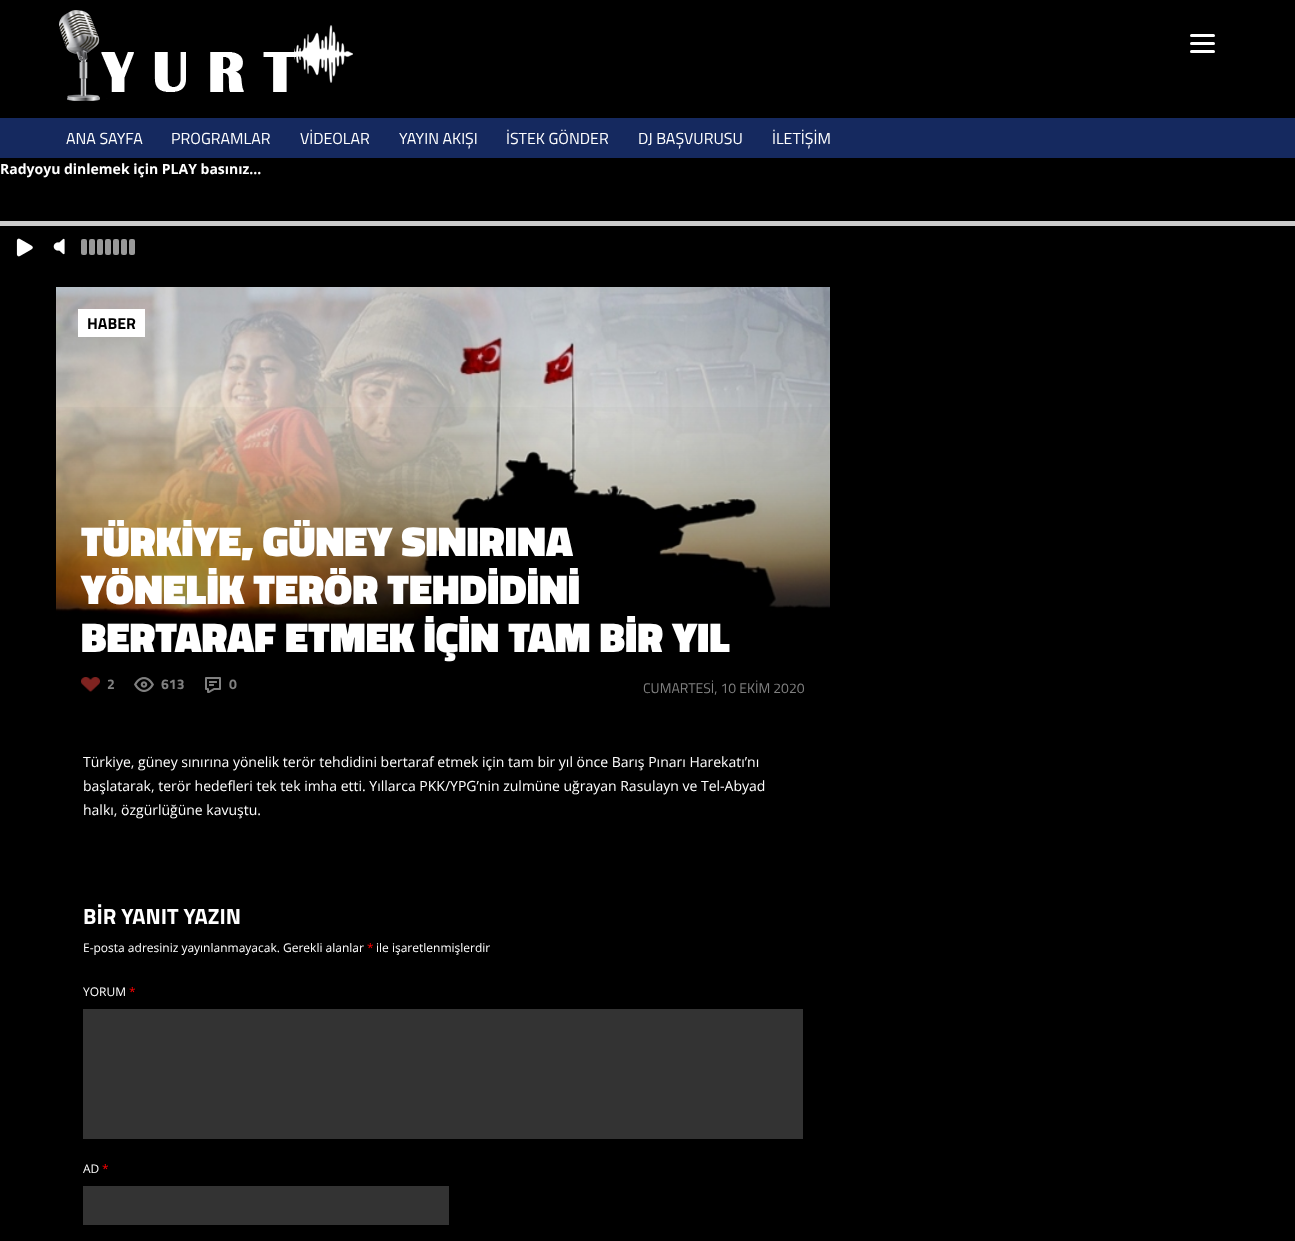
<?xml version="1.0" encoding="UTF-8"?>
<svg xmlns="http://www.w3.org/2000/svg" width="1295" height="1241">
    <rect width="100%" height="100%" fill="#000000"/>
    <rect x="1190" y="42" width="25" height="3" rx="1.5" fill="#FFFFFF"/>
    <rect x="1190" y="34" width="25" height="3" rx="1.5" fill="#FFFFFF"/>
    <rect x="1190" y="50" width="25" height="3" rx="1.5" fill="#FFFFFF"/>
    <image x="59" y="10" width="294" height="91" href="img_01.png"/>
    <rect x="0" y="118" width="1295" height="40" fill="#15295F"/>
    <text x="66" y="144" font-family="Titillium Web" font-size="16" fill="#FFFFFF">ANA SAYFA</text>
    <text x="171" y="144" font-family="Titillium Web" font-size="16" fill="#FFFFFF">PROGRAMLAR</text>
    <text x="300" y="144" font-family="Titillium Web" font-size="16" fill="#FFFFFF">VİDEOLAR</text>
    <text x="399" y="144" font-family="Titillium Web" font-size="16" fill="#FFFFFF">YAYIN AKIŞI</text>
    <text x="506" y="144" font-family="Titillium Web" font-size="16" fill="#FFFFFF">İSTEK GÖNDER</text>
    <text x="638" y="144" font-family="Titillium Web" font-size="16" fill="#FFFFFF">DJ BAŞVURUSU</text>
    <text x="772" y="144" font-family="Titillium Web" font-size="16" fill="#FFFFFF">İLETİŞİM</text>
    <text x="0" y="174" font-family="Open Sans" font-size="14" font-weight="700" fill="#FFFFFF">Radyoyu dinlemek için PLAY basınız...</text>
    <rect x="0" y="221" width="1295" height="5" fill="#CCCCCC"/>
    <image x="16" y="238" width="17" height="19" href="img_02.png"/>
    <image x="53" y="238" width="12" height="17" href="img_03.png"/>
    <rect x="81" y="239" width="6" height="16" rx="2" fill="#999999"/>
    <rect x="89" y="239" width="6" height="16" rx="2" fill="#999999"/>
    <rect x="97" y="239" width="6" height="16" rx="2" fill="#999999"/>
    <rect x="105" y="239" width="6" height="16" rx="2" fill="#999999"/>
    <rect x="113" y="239" width="6" height="16" rx="2" fill="#999999"/>
    <rect x="121" y="239" width="6" height="16" rx="2" fill="#999999"/>
    <rect x="129" y="239" width="6" height="16" rx="2" fill="#999999"/>
    <image x="56" y="287" width="774" height="342" href="img_04.png"/>
    <rect x="78" y="309" width="67" height="28" fill="#FFFFFF"/>
    <text x="87" y="329" font-family="Titillium Web" font-size="16" font-weight="700" fill="#000000">HABER</text>
    <image x="56" y="407" width="774" height="222" href="img_05.png"/>
    <text font-family="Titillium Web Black" font-size="42" font-weight="900" fill="#FFFFFF">
        <tspan x="81" y="556">TÜRKİYE, GÜNEY SINIRINA</tspan>
        <tspan x="81" y="604">YÖNELİK TERÖR TEHDİDİNİ</tspan>
        <tspan x="81" y="652">BERTARAF ETMEK İÇİN TAM BİR YIL</tspan>
    </text>
    <image x="81" y="677" width="19" height="15" href="img_06.png"/>
    <text x="107" y="689" font-family="Titillium Web" font-size="14" font-weight="700" fill="#808080">2</text>
    <image x="134" y="677" width="20" height="15" href="img_07.png"/>
    <text x="161" y="689" font-family="Titillium Web" font-size="14" font-weight="700" fill="#808080">613</text>
    <image x="205" y="677" width="16" height="16" href="img_08.png"/>
    <text x="229" y="689" font-family="Titillium Web" font-size="14" font-weight="700" fill="#808080">0</text>
    <text x="643" y="693" font-family="Titillium Web" font-size="14" fill="#808080">CUMARTESİ, 10 EKİM 2020</text>
    <text font-family="Open Sans" font-size="14" fill="#FFFFFF">
        <tspan x="83" y="767">Türkiye, güney sınırına yönelik terör tehdidini bertaraf etmek için tam bir yıl önce Barış Pınarı Harekatı’nı</tspan>
        <tspan x="83" y="791">başlatarak, terör hedefleri tek tek imha etti. Yıllarca PKK/YPG’nin zulmüne uğrayan Rasulayn ve Tel-Abyad</tspan>
        <tspan x="83" y="815">halkı, özgürlüğüne kavuştu.</tspan>
    </text>
    <text x="83" y="924" font-family="Titillium Web" font-size="22" font-weight="700" fill="#FFFFFF">BİR YANIT YAZIN</text>
    <text x="83" y="952" font-family="Open Sans" font-size="12" fill="#FFFFFF">E-posta adresiniz yayınlanmayacak. Gerekli alanlar</text>
    <text x="367" y="952" font-family="Open Sans" font-size="12" fill="#FF0000">*</text>
    <text x="376" y="952" font-family="Open Sans" font-size="12" fill="#FFFFFF">ile işaretlenmişlerdir</text>
    <text x="83" y="996" font-family="Open Sans" font-size="12" fill="#FFFFFF">YORUM</text>
    <text x="129" y="996" font-family="Open Sans" font-size="12" fill="#FF0000">*</text>
    <rect x="83" y="1009" width="720" height="130" fill="#333333"/>
    <text x="83" y="1173" font-family="Open Sans" font-size="12" fill="#FFFFFF">AD</text>
    <text x="102" y="1173" font-family="Open Sans" font-size="12" fill="#FF0000">*</text>
    <rect x="83" y="1186" width="366" height="39" fill="#333333"/>
</svg>
